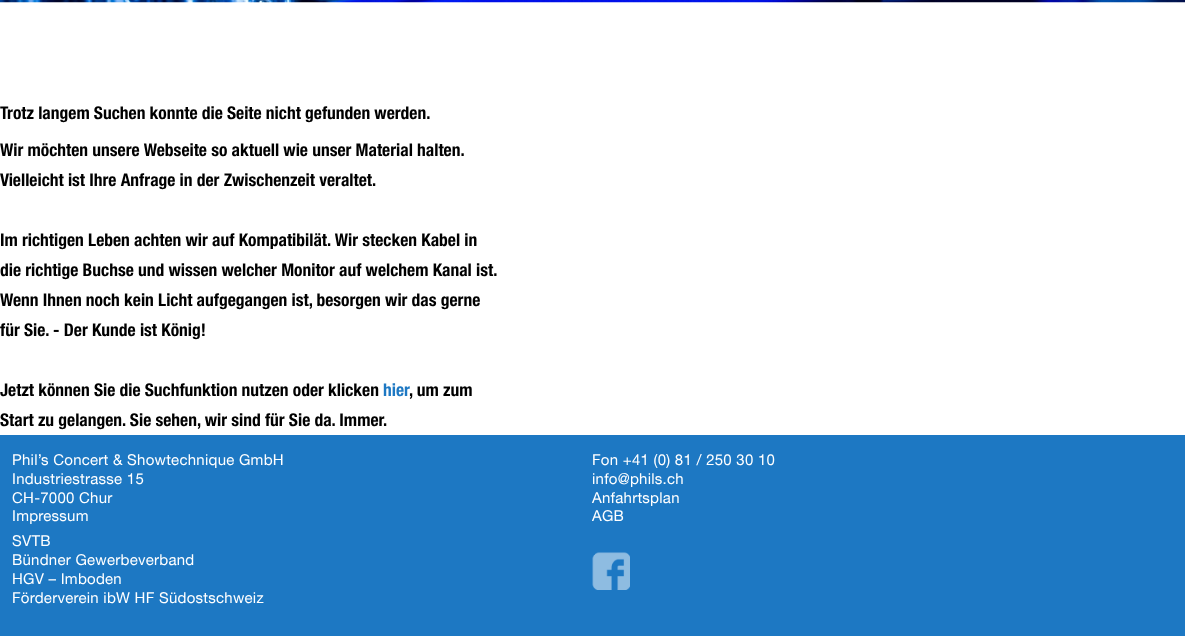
<?xml version="1.0" encoding="UTF-8"?>
<svg xmlns="http://www.w3.org/2000/svg" width="1185" height="636">
    <rect width="100%" height="100%" fill="#FFFFFF"/>
    <image x="0" y="0" width="1185" height="3" href="img_01.png"/>
    <text x="0" y="119" font-family="'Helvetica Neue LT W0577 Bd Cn'" font-size="17.5" font-weight="700" fill="#000000">Trotz langem Suchen konnte die Seite nicht gefunden werden.</text>
    <text font-family="'Helvetica Neue LT W0577 Bd Cn'" font-size="17.5" font-weight="700" fill="#000000">
        <tspan x="0" y="156">Wir möchten unsere Webseite so aktuell wie unser Material halten.</tspan>
        <tspan x="0" y="186">Vielleicht ist Ihre Anfrage in der Zwischenzeit veraltet.</tspan>
    </text>
    <text font-family="'Helvetica Neue LT W0577 Bd Cn'" font-size="17.5" font-weight="700" fill="#000000">
        <tspan x="0" y="246">Im richtigen Leben achten wir auf Kompatibilät. Wir stecken Kabel in</tspan>
        <tspan x="0" y="276">die richtige Buchse und wissen welcher Monitor auf welchem Kanal ist.</tspan>
        <tspan x="0" y="306">Wenn Ihnen noch kein Licht aufgegangen ist, besorgen wir das gerne</tspan>
        <tspan x="0" y="336">für Sie. - Der Kunde ist König!</tspan>
    </text>
    <text x="0" y="396" font-family="'Helvetica Neue LT W0577 Bd Cn'" font-size="17.5" font-weight="700" fill="#000000">Jetzt können Sie die Suchfunktion nutzen oder klicken</text>
    <text x="383" y="396" font-family="'Helvetica Neue LT W0577 Bd Cn'" font-size="17.5" font-weight="700" fill="#1D78C3">hier</text>
    <text x="409" y="396" font-family="'Helvetica Neue LT W0577 Bd Cn'" font-size="17.5" font-weight="700" fill="#000000">, um zum</text>
    <text x="0" y="426" font-family="'Helvetica Neue LT W0577 Bd Cn'" font-size="17.5" font-weight="700" fill="#000000">Start zu gelangen. Sie sehen, wir sind für Sie da. Immer.</text>
    <rect x="0" y="435" width="1185" height="201" fill="#1D78C3"/>
    <text font-family="'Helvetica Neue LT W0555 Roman'" font-size="15" letter-spacing="0.25" fill="#FFFFFF">
        <tspan x="12" y="465">Phil’s Concert &amp; Showtechnique GmbH</tspan>
        <tspan x="12" y="484">Industriestrasse 15</tspan>
        <tspan x="12" y="503">CH-7000 Chur</tspan>
        <tspan x="12" y="521">Impressum</tspan>
    </text>
    <text font-family="'Helvetica Neue LT W0555 Roman'" font-size="15" letter-spacing="0.25" fill="#FFFFFF">
        <tspan x="592" y="465">Fon +41 (0) 81 / 250 30 10</tspan>
        <tspan x="592" y="484">info@phils.ch</tspan>
        <tspan x="592" y="503">Anfahrtsplan</tspan>
        <tspan x="592" y="521">AGB</tspan>
    </text>
    <text font-family="'Helvetica Neue LT W0555 Roman'" font-size="15" letter-spacing="0.25" fill="#FFFFFF">
        <tspan x="12" y="546">SVTB</tspan>
        <tspan x="12" y="565">Bündner Gewerbeverband</tspan>
        <tspan x="12" y="584">HGV – Imboden</tspan>
        <tspan x="12" y="603">Förderverein ibW HF Südostschweiz</tspan>
    </text>
    <image x="592" y="552" width="38" height="38" href="img_02.png"/>
</svg>
